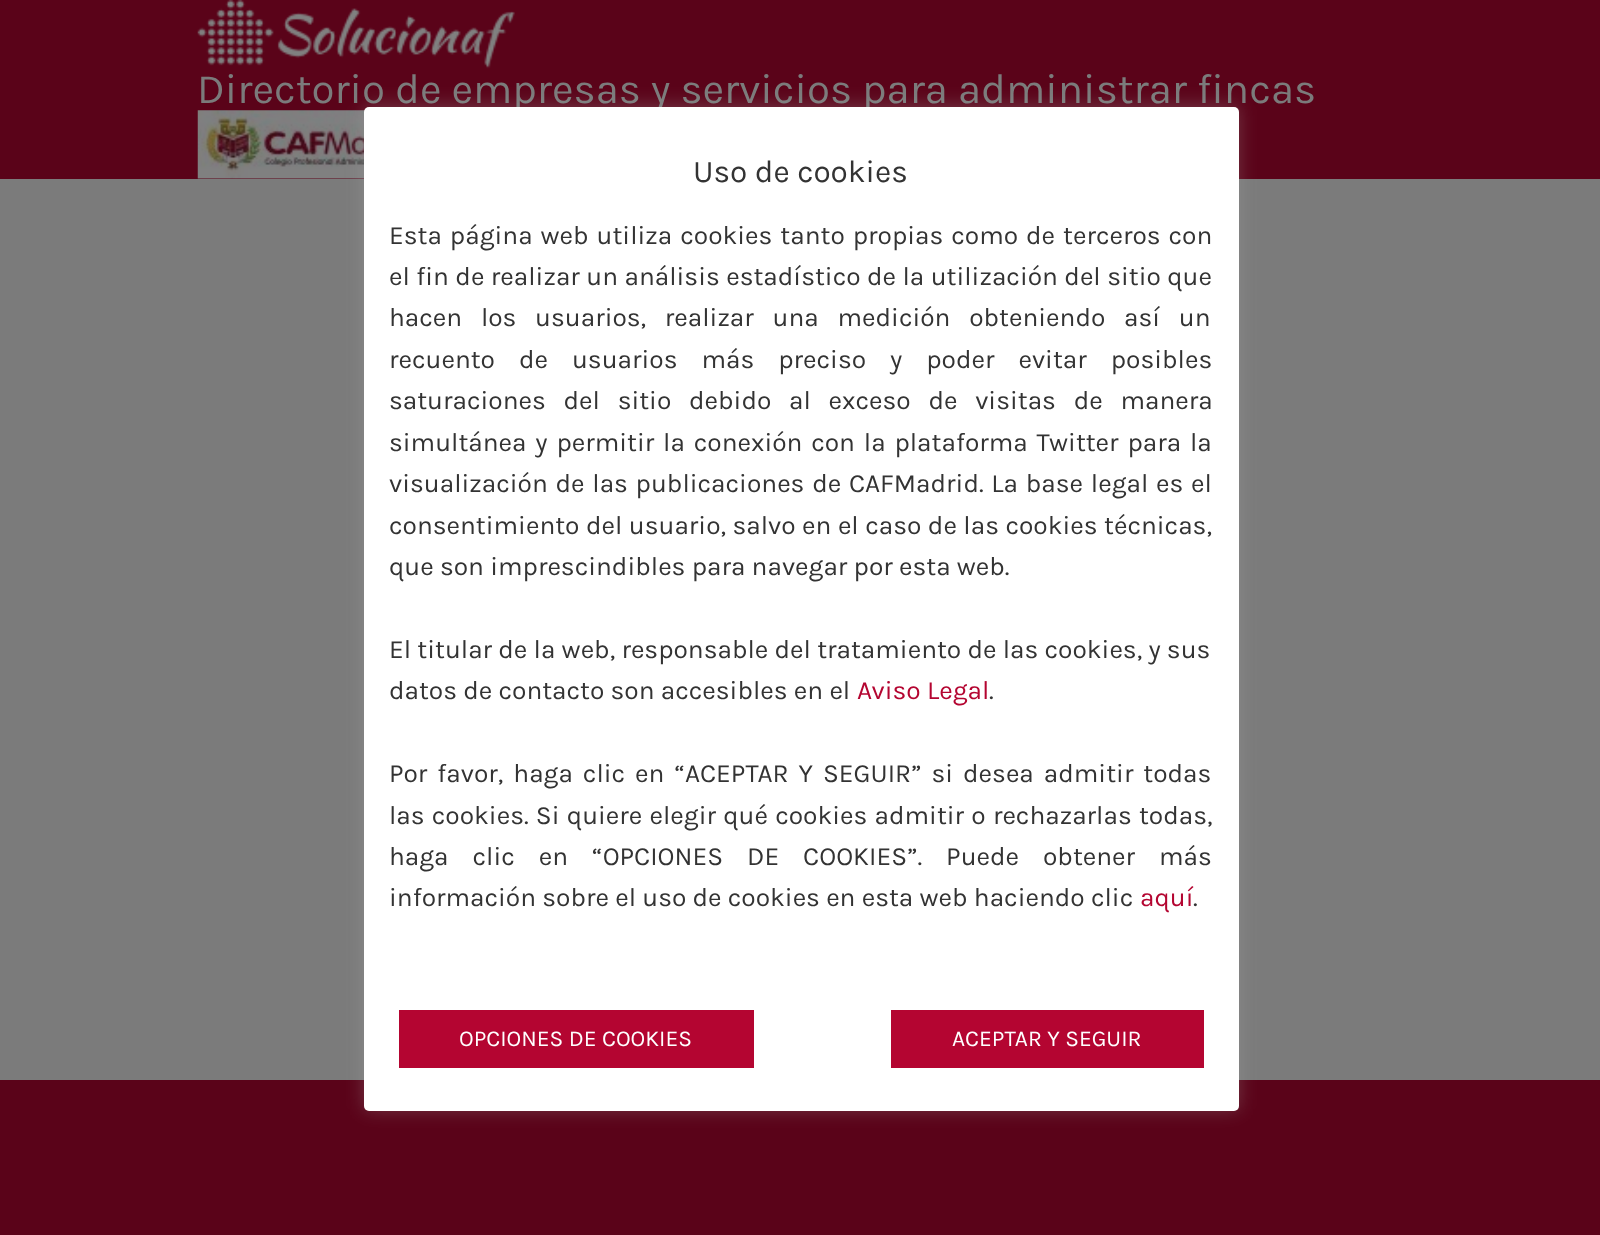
<?xml version="1.0" encoding="UTF-8"?>
<svg xmlns="http://www.w3.org/2000/svg" width="1600" height="1235">
    <defs>
        <filter id="blur1" x="-50%" y="-200%" width="200%" height="500%"><feGaussianBlur stdDeviation="9"/></filter>
    </defs>
    <rect width="100%" height="100%" fill="#7B7B7B"/>
    <rect x="0" y="0" width="1600" height="179" fill="#5A0319"/>
    <image x="197" y="0" width="318" height="69" href="img_01.png"/>
    <text x="197" y="103" font-family="Karla" font-size="42" fill="#7B7B7B">Directorio de empresas y servicios para administrar fincas</text>
    <image x="197" y="110" width="168" height="69" href="img_02.png"/>
    <rect x="0" y="1080" width="1600" height="155" fill="#5A0319"/>
    <rect x="364" y="105" width="875" height="1005" rx="5" fill="#ACABAB" fill-opacity="0.3" filter="url(#blur1)"/>
    <rect x="364" y="107" width="875" height="1004" rx="5" fill="#FFFFFF"/>
    <text x="693" y="182" font-family="Karla" font-size="31.5" fill="#333333">Uso de cookies</text>
    <text font-family="Karla" font-size="26.25" fill="#333333">
        <tspan x="389" y="244" word-spacing="1.75">Esta página web utiliza cookies tanto propias como de terceros con</tspan>
        <tspan x="389" y="285" word-spacing="0.2">el fin de realizar un análisis estadístico de la utilización del sitio que</tspan>
        <tspan x="389" y="326" word-spacing="12.5">hacen los usuarios, realizar una medición obteniendo así un</tspan>
        <tspan x="389" y="368" word-spacing="17.75">recuento de usuarios más preciso y poder evitar posibles</tspan>
        <tspan x="389" y="409" word-spacing="11.5">saturaciones del sitio debido al exceso de visitas de manera</tspan>
        <tspan x="389" y="451" word-spacing="2.6">simultánea y permitir la conexión con la plataforma Twitter para la</tspan>
        <tspan x="389" y="492" word-spacing="1.5">visualización de las publicaciones de CAFMadrid. La base legal es el</tspan>
        <tspan x="389" y="534" word-spacing="0.25">consentimiento del usuario, salvo en el caso de las cookies técnicas,</tspan>
        <tspan x="389" y="575">que son imprescindibles para navegar por esta web.</tspan>
    </text>
    <text font-family="Karla" font-size="26.25" fill="#333333">
        <tspan x="389" y="658">El titular de la web, responsable del tratamiento de las cookies, y sus</tspan>
        <tspan x="389" y="699">datos de contacto son accesibles en el</tspan>
    </text>
    <text x="857" y="699" font-family="Karla" font-size="26.25" fill="#B40531">Aviso Legal</text>
    <text x="989" y="699" font-family="Karla" font-size="26.25" fill="#333333">.</text>
    <text font-family="Karla" font-size="26.25" fill="#333333">
        <tspan x="389" y="782" word-spacing="3.75">Por favor, haga clic en “ACEPTAR Y SEGUIR” si desea admitir todas</tspan>
        <tspan x="389" y="824" word-spacing="1">las cookies. Si quiere elegir qué cookies admitir o rechazarlas todas,</tspan>
        <tspan x="389" y="865" word-spacing="17.75">haga clic en “OPCIONES DE COOKIES”. Puede obtener más</tspan>
        <tspan x="389" y="906">información sobre el uso de cookies en esta web haciendo clic</tspan>
    </text>
    <text x="1140" y="906" font-family="Karla" font-size="26.25" fill="#B40531">aquí</text>
    <text x="1193" y="906" font-family="Karla" font-size="26.25" fill="#333333">.</text>
    <rect x="399" y="1010" width="355" height="58" fill="#B40531"/>
    <text x="459" y="1046" font-family="Karla" font-size="22.75" fill="#FFFFFF">OPCIONES DE COOKIES</text>
    <rect x="891" y="1010" width="313" height="58" fill="#B40531"/>
    <text x="952" y="1046" font-family="Karla" font-size="22.75" fill="#FFFFFF">ACEPTAR Y SEGUIR</text>
</svg>
